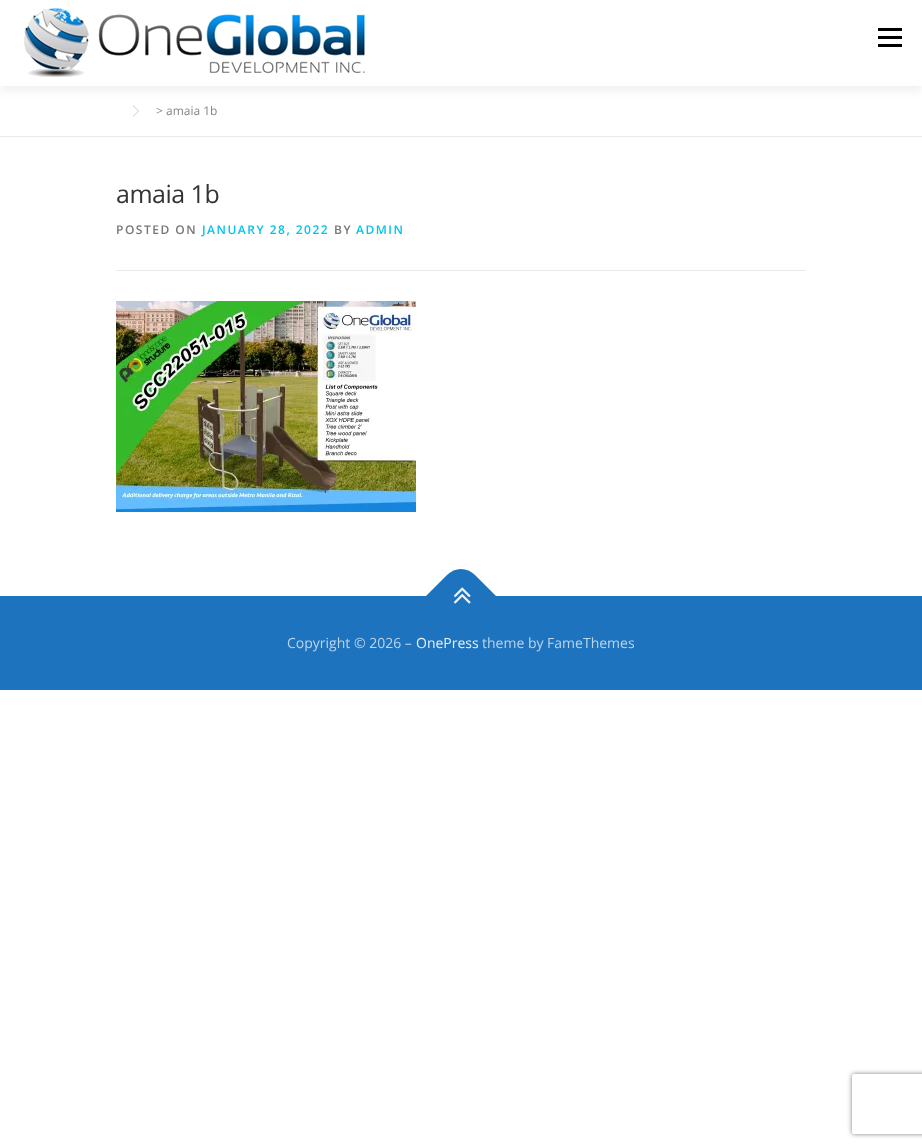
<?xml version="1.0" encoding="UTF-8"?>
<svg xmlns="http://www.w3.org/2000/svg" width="922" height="1148">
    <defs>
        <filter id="blur1" x="-50%" y="-200%" width="200%" height="500%"><feGaussianBlur stdDeviation="5"/></filter>
        <clipPath id="clip1"><path d="M 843 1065 H 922 V 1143 H 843 Z M 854 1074 H 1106 C 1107 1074 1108 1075 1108 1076 V 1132 C 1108 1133 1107 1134 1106 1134 H 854 C 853 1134 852 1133 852 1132 V 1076 C 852 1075 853 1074 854 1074 Z" clip-rule="evenodd"/></clipPath>
        <filter id="blur2" x="-50%" y="-200%" width="200%" height="500%"><feGaussianBlur stdDeviation="2.5"/></filter>
    </defs>
    <rect width="100%" height="100%" fill="#FFFFFF"/>
    <path d="M 133 117 V 105 L 139 111 Z" fill="#CCCCCC"/>
    <path d="M 133 116 V 106 L 138 111 Z" fill="#FFFFFF"/>
    <rect x="0" y="5" width="922" height="86" fill="#323232" fill-opacity="0.06" filter="url(#blur1)"/>
    <rect x="0" y="1" width="922" height="85" fill="#FFFFFF"/>
    <image x="24" y="8" width="341" height="69" href="img_01.png"/>
    <rect x="878" y="36" width="24" height="3" fill="#000000"/>
    <rect x="878" y="28" width="24" height="3" fill="#000000"/>
    <rect x="878" y="44" width="24" height="3" fill="#000000"/>
    <rect x="0" y="136" width="922" height="1" fill="#E9E9E9"/>
    <text x="156" y="115" font-family="Open Sans" font-size="12" fill="#858585">&gt; amaia 1b</text>
    <text x="116" y="203" font-family="Open Sans" font-size="25" letter-spacing="-0.5" fill="#333333">amaia 1b</text>
    <rect x="116" y="270" width="690" height="1" fill="#E9E9E9"/>
    <text x="116" y="234" font-family="Open Sans" font-size="12" font-weight="600" letter-spacing="1.5" fill="#777777">POSTED ON</text>
    <text x="202" y="234" font-family="Open Sans" font-size="12" font-weight="600" letter-spacing="1.5" fill="#03C4EB">JANUARY 28, 2022</text>
    <text x="334" y="234" font-family="Open Sans" font-size="12" font-weight="600" letter-spacing="1.5" fill="#777777">BY</text>
    <text x="356" y="234" font-family="Open Sans" font-size="12" font-weight="600" letter-spacing="1.5" fill="#03C4EB">ADMIN</text>
    <image x="116" y="301" width="300" height="211" href="img_02.png"/>
    <rect x="0" y="596" width="922" height="94" fill="#1E73BE"/>
    <path d="M 426 596 L 447 575 C 455 567 467 567 475 575 L 496 596 L 461 632 Z" fill="#1E73BE"/>
    <image x="453" y="587" width="18" height="17" href="img_03.png"/>
    <text x="287" y="648" font-family="Open Sans" font-size="14" fill="#BCD5EC">Copyright © 2026 –</text>
    <text x="416" y="648" font-family="Open Sans" font-size="14" fill="#E9F1F9">OnePress</text>
    <text x="482" y="648" font-family="Open Sans" font-size="14" fill="#BCD5EC">theme by FameThemes</text>
    <g clip-path="url(#clip1)">
        <rect x="852" y="1074" width="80" height="60" rx="2" fill="#808080" filter="url(#blur2)"/>
    </g>
</svg>
